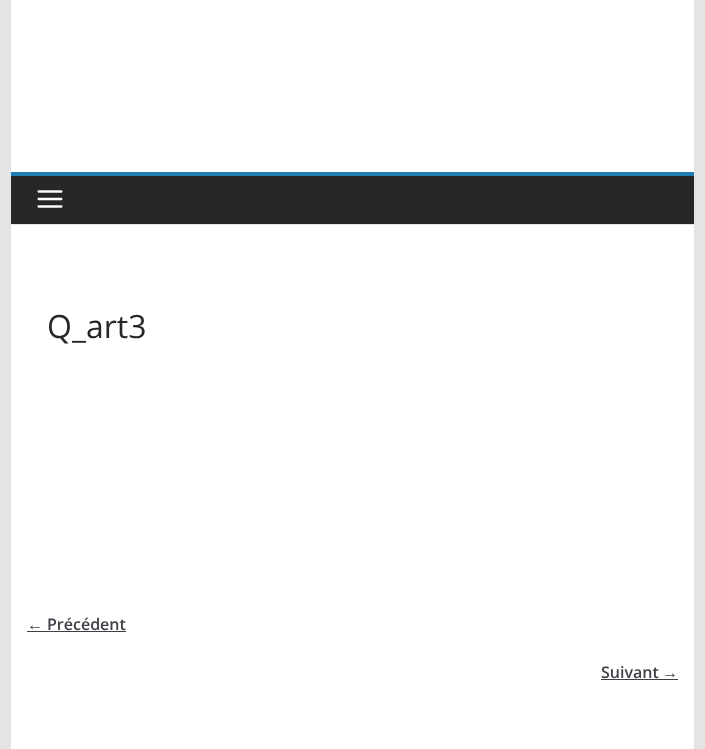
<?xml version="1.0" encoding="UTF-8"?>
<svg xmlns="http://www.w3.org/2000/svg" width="705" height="749">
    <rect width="100%" height="100%" fill="#E4E4E7"/>
    <rect x="11" y="0" width="683" height="172" fill="#FFFFFF"/>
    <rect x="11" y="176" width="683" height="48" fill="#27272A"/>
    <rect x="11" y="172" width="683" height="4" fill="#207DAF"/>
    <image x="37" y="190" width="26" height="18" href="img_01.png"/>
    <rect x="11" y="225" width="683" height="524" fill="#FFFFFF"/>
    <text x="47" y="338" font-family="Open Sans" font-size="32" fill="#27272A">Q_art3</text>
    <text x="27" y="630" font-family="Liberation Serif" font-size="16" font-weight="700" fill="#3F3F46">←</text>
    <rect x="27" y="631" width="99" height="1" fill="#3F3F46"/>
    <text x="47" y="630" font-family="Open Sans" font-size="16" font-weight="600" fill="#3F3F46">Précédent</text>
    <text x="601" y="678" font-family="Open Sans" font-size="16" font-weight="600" fill="#3F3F46">Suivant</text>
    <text x="662" y="678" font-family="Liberation Serif" font-size="16" font-weight="700" fill="#3F3F46">→</text>
    <rect x="601" y="679" width="77" height="1" fill="#3F3F46"/>
</svg>
